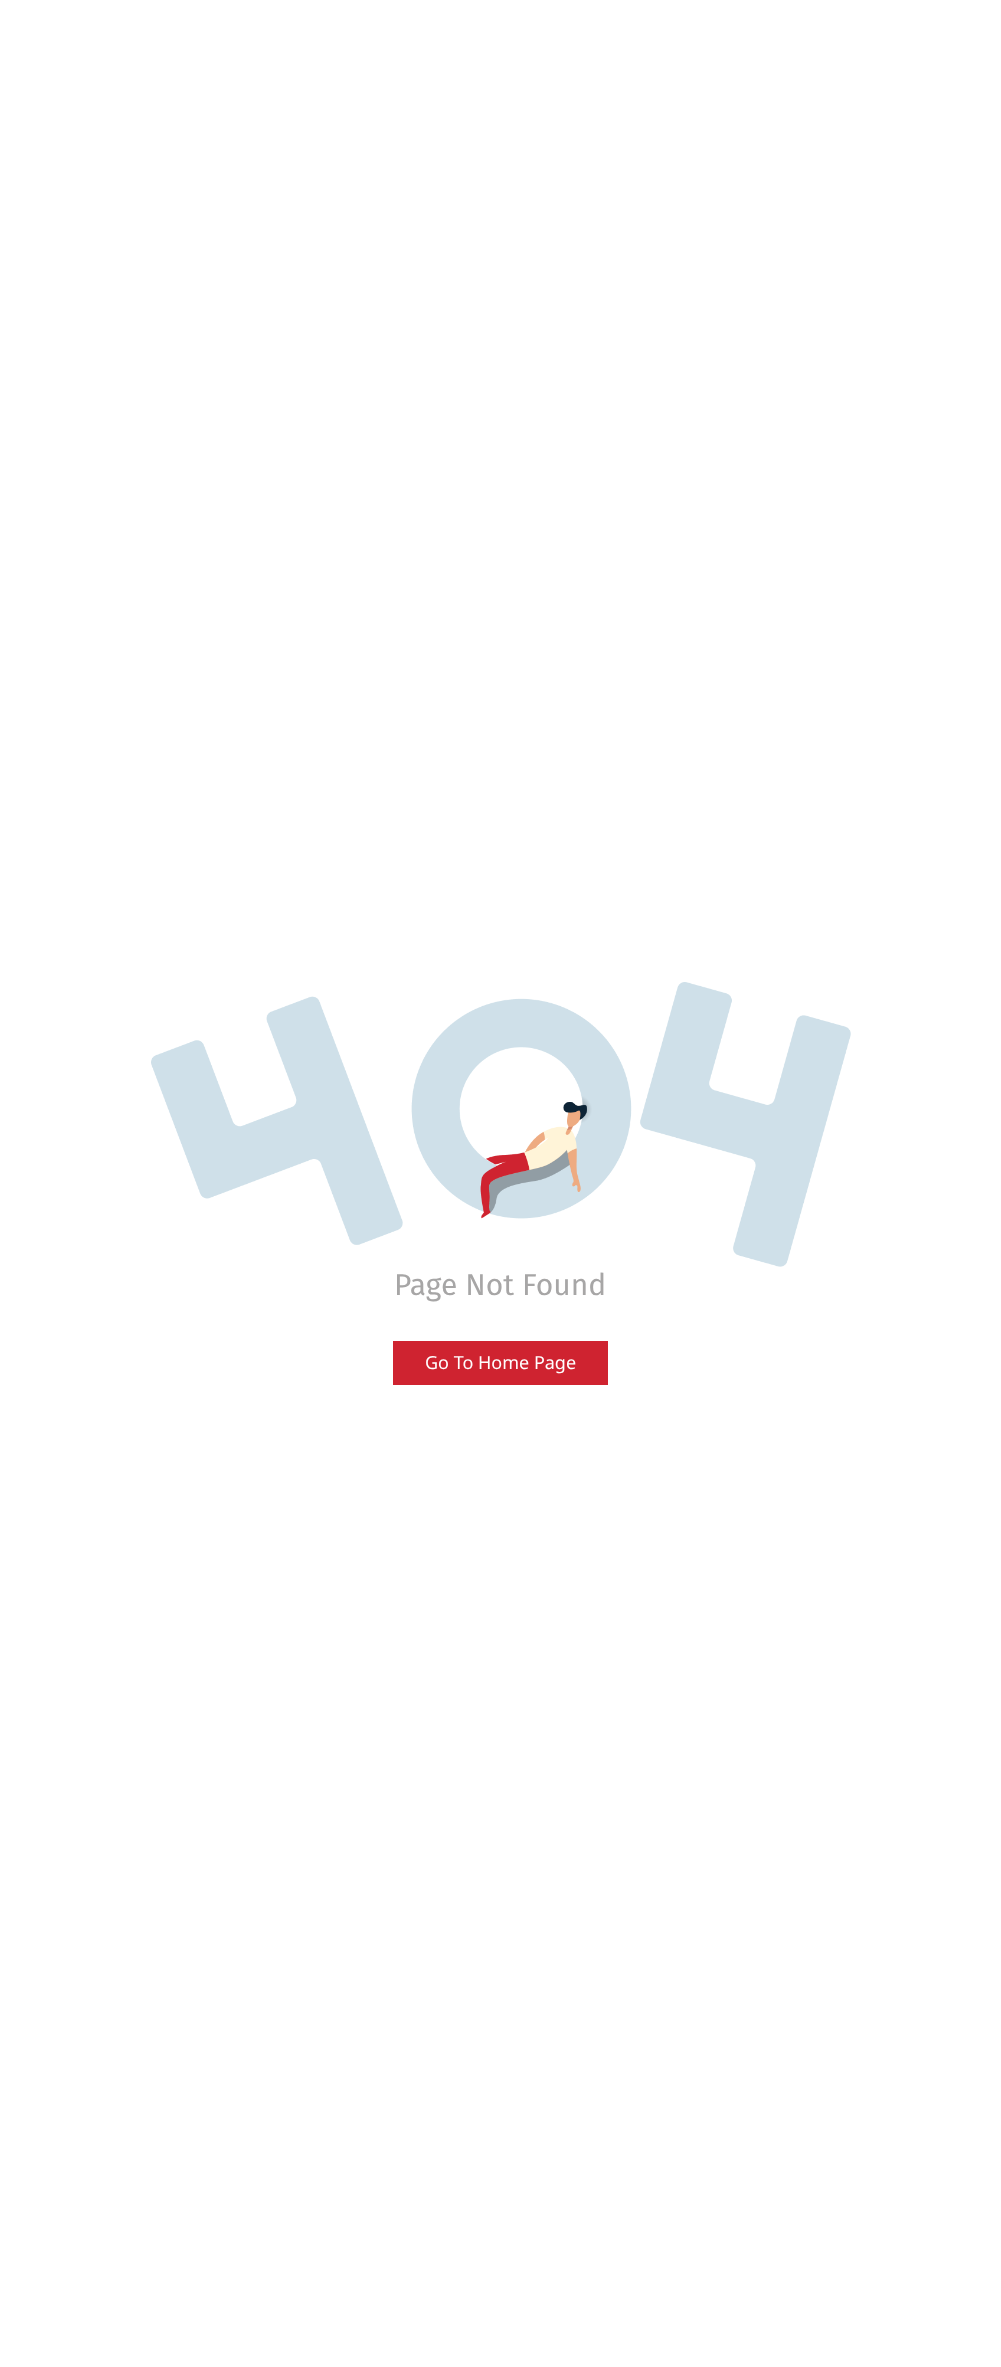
<?xml version="1.0" encoding="UTF-8"?>
<svg xmlns="http://www.w3.org/2000/svg" width="1001" height="2367">
    <rect width="100%" height="100%" fill="#FFFFFF"/>
    <image x="151" y="982" width="700" height="285" href="img_01.png"/>
    <text x="394" y="1295" font-family="Fira Sans" font-size="30" fill="#A7A6A6">Page Not Found</text>
    <rect x="393" y="1341" width="215" height="44" fill="#CF2330"/>
    <text x="425" y="1369" font-family="Noto Sans" font-size="18" fill="#FFFFFF">Go To Home Page</text>
</svg>
